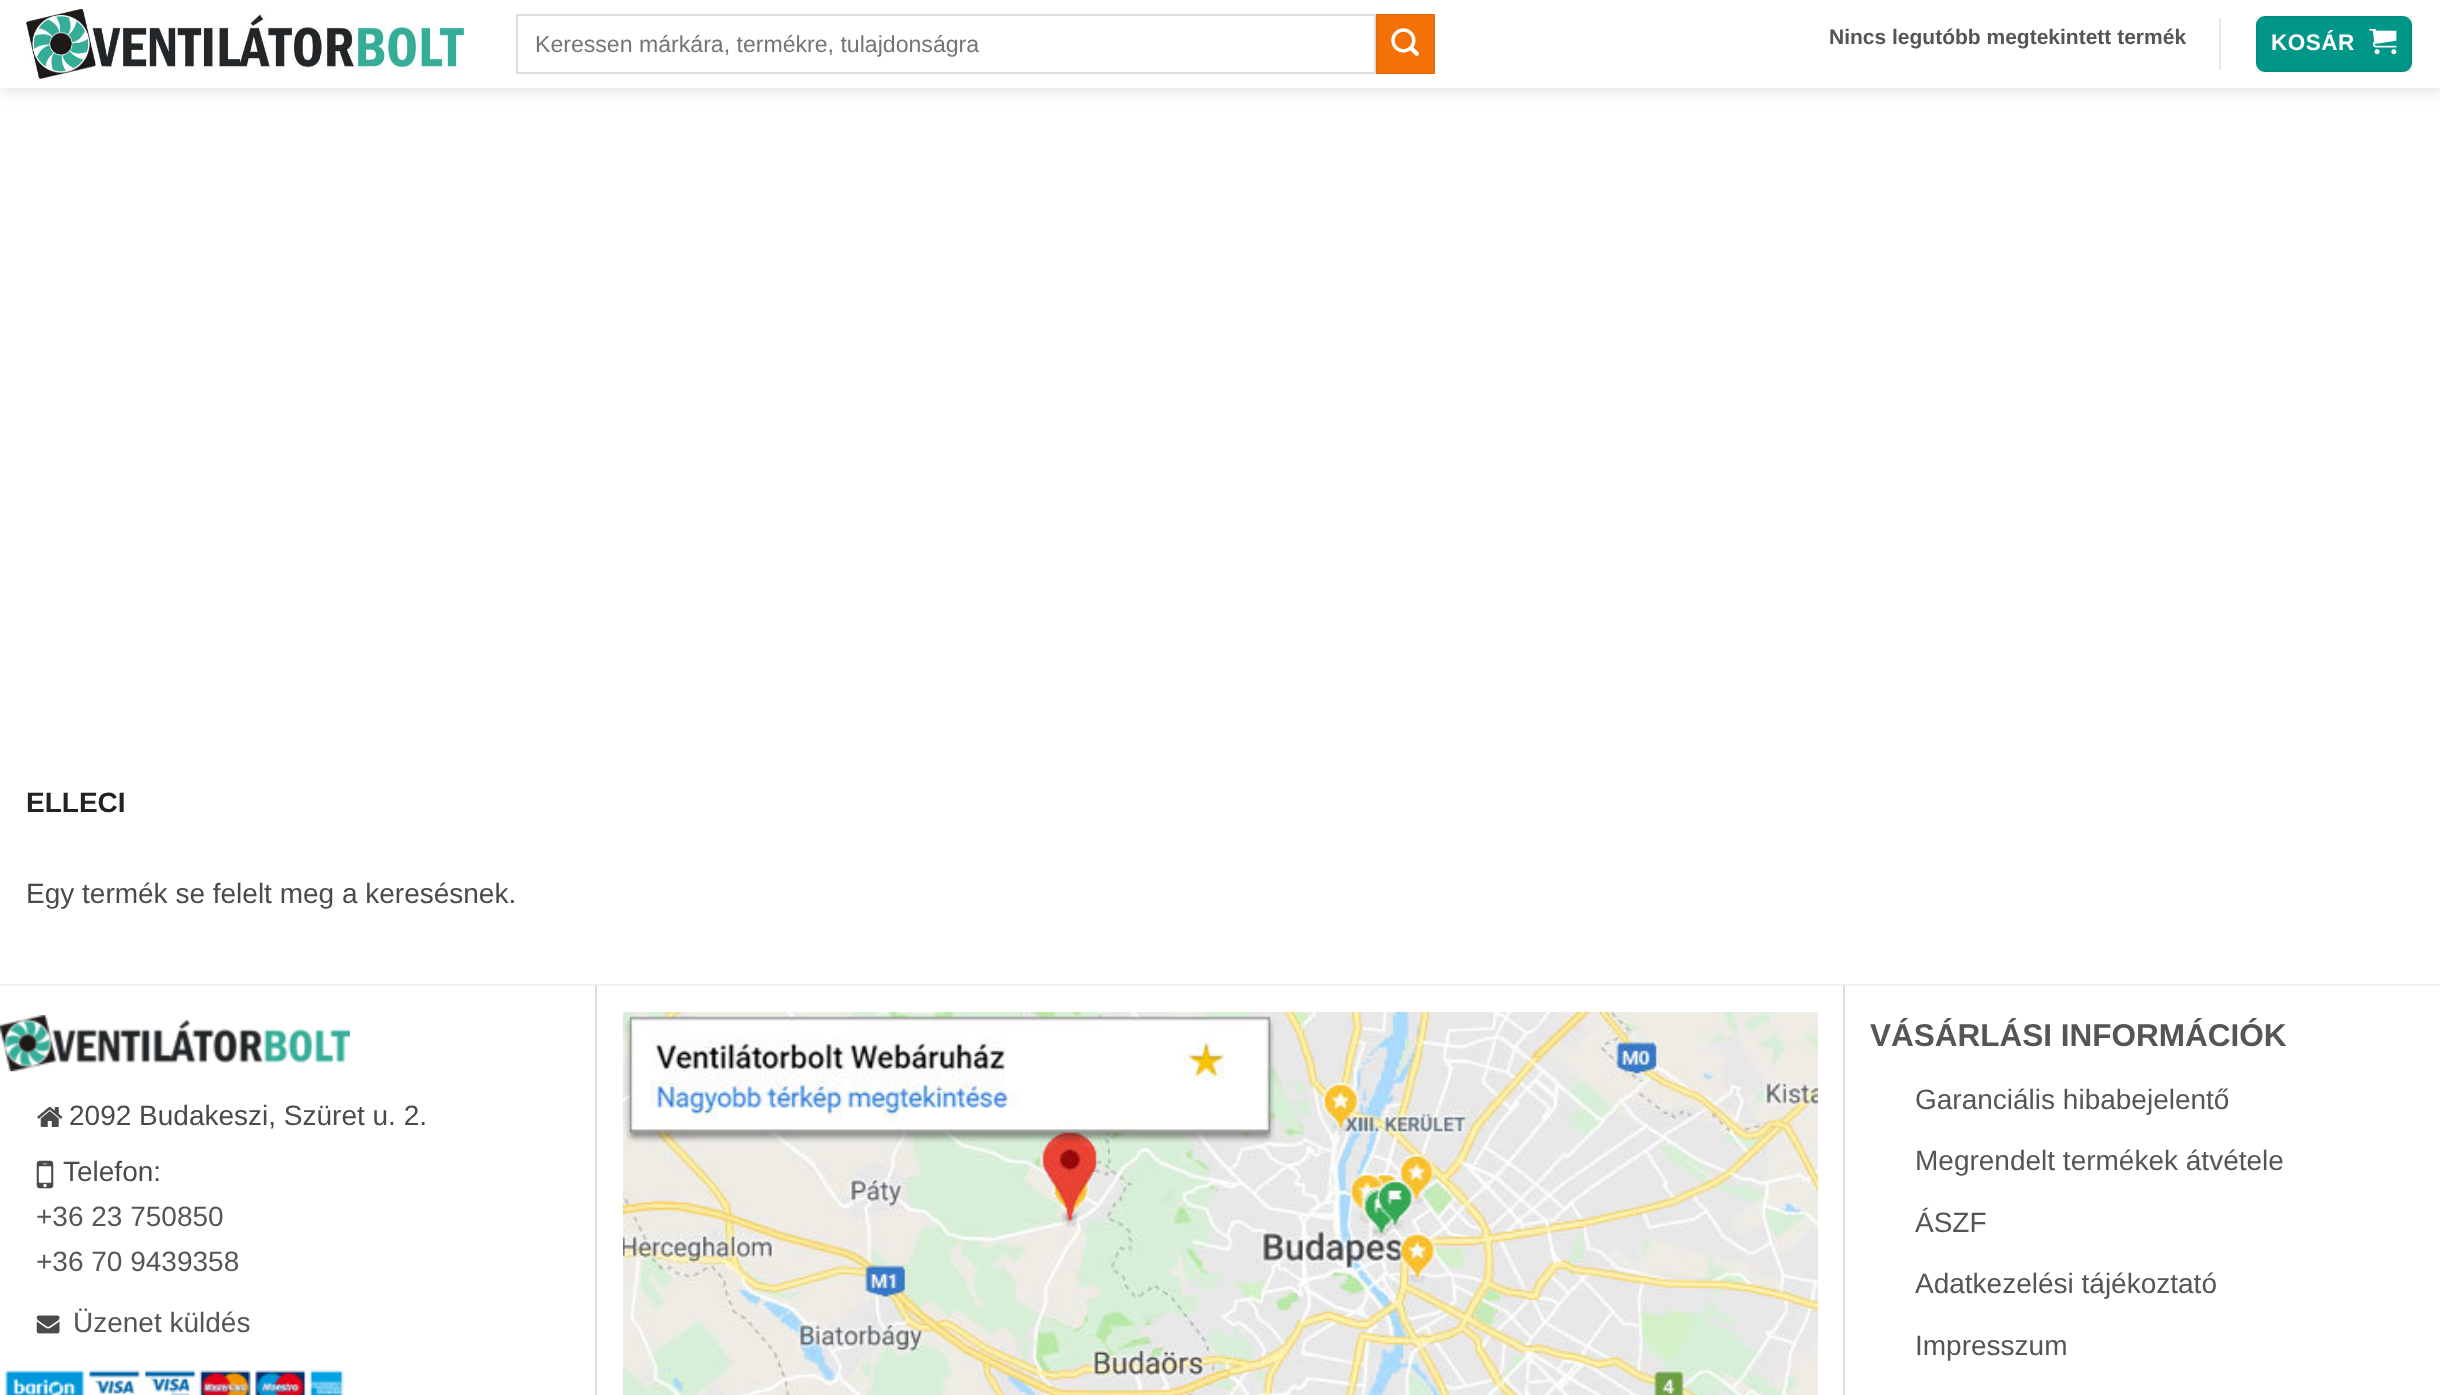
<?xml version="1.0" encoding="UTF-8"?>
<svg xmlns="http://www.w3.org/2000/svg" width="2440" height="1395">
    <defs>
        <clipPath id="clip1"><path d="M 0 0 H 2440 V 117 H 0 Z M 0 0 H 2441 V 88 H 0 Z" clip-rule="evenodd"/></clipPath>
        <filter id="blur1" x="-50%" y="-200%" width="200%" height="500%"><feGaussianBlur stdDeviation="9"/></filter>
    </defs>
    <rect width="100%" height="100%" fill="#FFFFFF"/>
    <g clip-path="url(#clip1)">
        <rect x="2" y="2" width="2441" height="87" fill="#000000" fill-opacity="0.15" filter="url(#blur1)"/>
    </g>
    <image x="26" y="9" width="438" height="70" href="img_01.png"/>
    <rect x="517" y="15" width="858" height="58" fill="none" stroke="#DDDDDD" stroke-width="2"/>
    <text x="535" y="52" font-family="Liberation Sans" font-size="23.1" fill="#757575">Keressen márkára, termékre, tulajdonságra</text>
    <rect x="1377" y="15" width="57" height="58" fill="#F37106" stroke="#E76B06" stroke-width="2"/>
    <image x="1391" y="28" width="28" height="28" href="img_02.png"/>
    <text x="1829" y="44" font-family="Liberation Sans" font-size="21" font-weight="700" fill="#555555">Nincs legutóbb megtekintett termék</text>
    <rect x="2219" y="18" width="2" height="52" fill="#E6E6E6"/>
    <rect x="2256" y="16" width="156" height="56" rx="9" fill="#009688"/>
    <rect x="2257" y="17" width="154" height="54" fill="none" stroke="#000000" stroke-opacity="0.05" stroke-width="2"/>
    <text x="2271" y="50" font-family="Liberation Sans" font-size="22.5" font-weight="700" letter-spacing="0.5" fill="#FFFFFF">KOSÁR</text>
    <image x="2369" y="29" width="28" height="26" href="img_03.png"/>
    <rect x="0" y="87" width="2440" height="1" fill="#FFFFFF" fill-opacity="0.9"/>
    <text x="26" y="812" font-family="Liberation Sans" font-size="28" font-weight="700" fill="#222222">ELLECI</text>
    <text x="26" y="903" font-family="Liberation Sans" font-size="28" fill="#4A4A4A">Egy termék se felelt meg a keresésnek.</text>
    <rect x="0" y="984" width="2440" height="2" fill="#F2F2F2"/>
    <image x="0" y="1015" width="350" height="57" href="img_04.png"/>
    <image x="37" y="1107" width="26" height="20" href="img_05.png"/>
    <text x="69" y="1125" font-family="Liberation Sans" font-size="28" fill="#4A4A4A">2092 Budakeszi, Szüret u. 2.</text>
    <image x="36" y="1160" width="18" height="29" href="img_06.png"/>
    <text x="63" y="1181" font-family="Liberation Sans" font-size="28" fill="#4A4A4A">Telefon:</text>
    <text font-family="Liberation Sans" font-size="28" fill="#555555">
        <tspan x="36" y="1226">+36 23 750850</tspan>
        <tspan x="36" y="1271">+36 70 9439358</tspan>
    </text>
    <image x="36" y="1315" width="24" height="19" href="img_07.png"/>
    <text x="73" y="1332" font-family="Liberation Sans" font-size="28" fill="#555555">Üzenet küldés</text>
    <image x="4" y="1370" width="340" height="25" href="img_08.png"/>
    <rect x="595" y="985" width="2" height="410" fill="#DDDDDD"/>
    <image x="623" y="1011" width="1196" height="384" href="img_09.png"/>
    <rect x="1843" y="985" width="2" height="410" fill="#DDDDDD"/>
    <text x="1870" y="1046" font-family="Liberation Sans" font-size="31.5" font-weight="700" fill="#555555">VÁSÁRLÁSI INFORMÁCIÓK</text>
    <text x="1915" y="1109" font-family="Liberation Sans" font-size="28" fill="#555555">Garanciális hibabejelentő</text>
    <text x="1915" y="1170" font-family="Liberation Sans" font-size="28" fill="#555555">Megrendelt termékek átvétele</text>
    <text x="1915" y="1232" font-family="Liberation Sans" font-size="28" fill="#555555">ÁSZF</text>
    <text x="1915" y="1293" font-family="Liberation Sans" font-size="28" fill="#555555">Adatkezelési tájékoztató</text>
    <text x="1915" y="1355" font-family="Liberation Sans" font-size="28" fill="#555555">Impresszum</text>
</svg>
